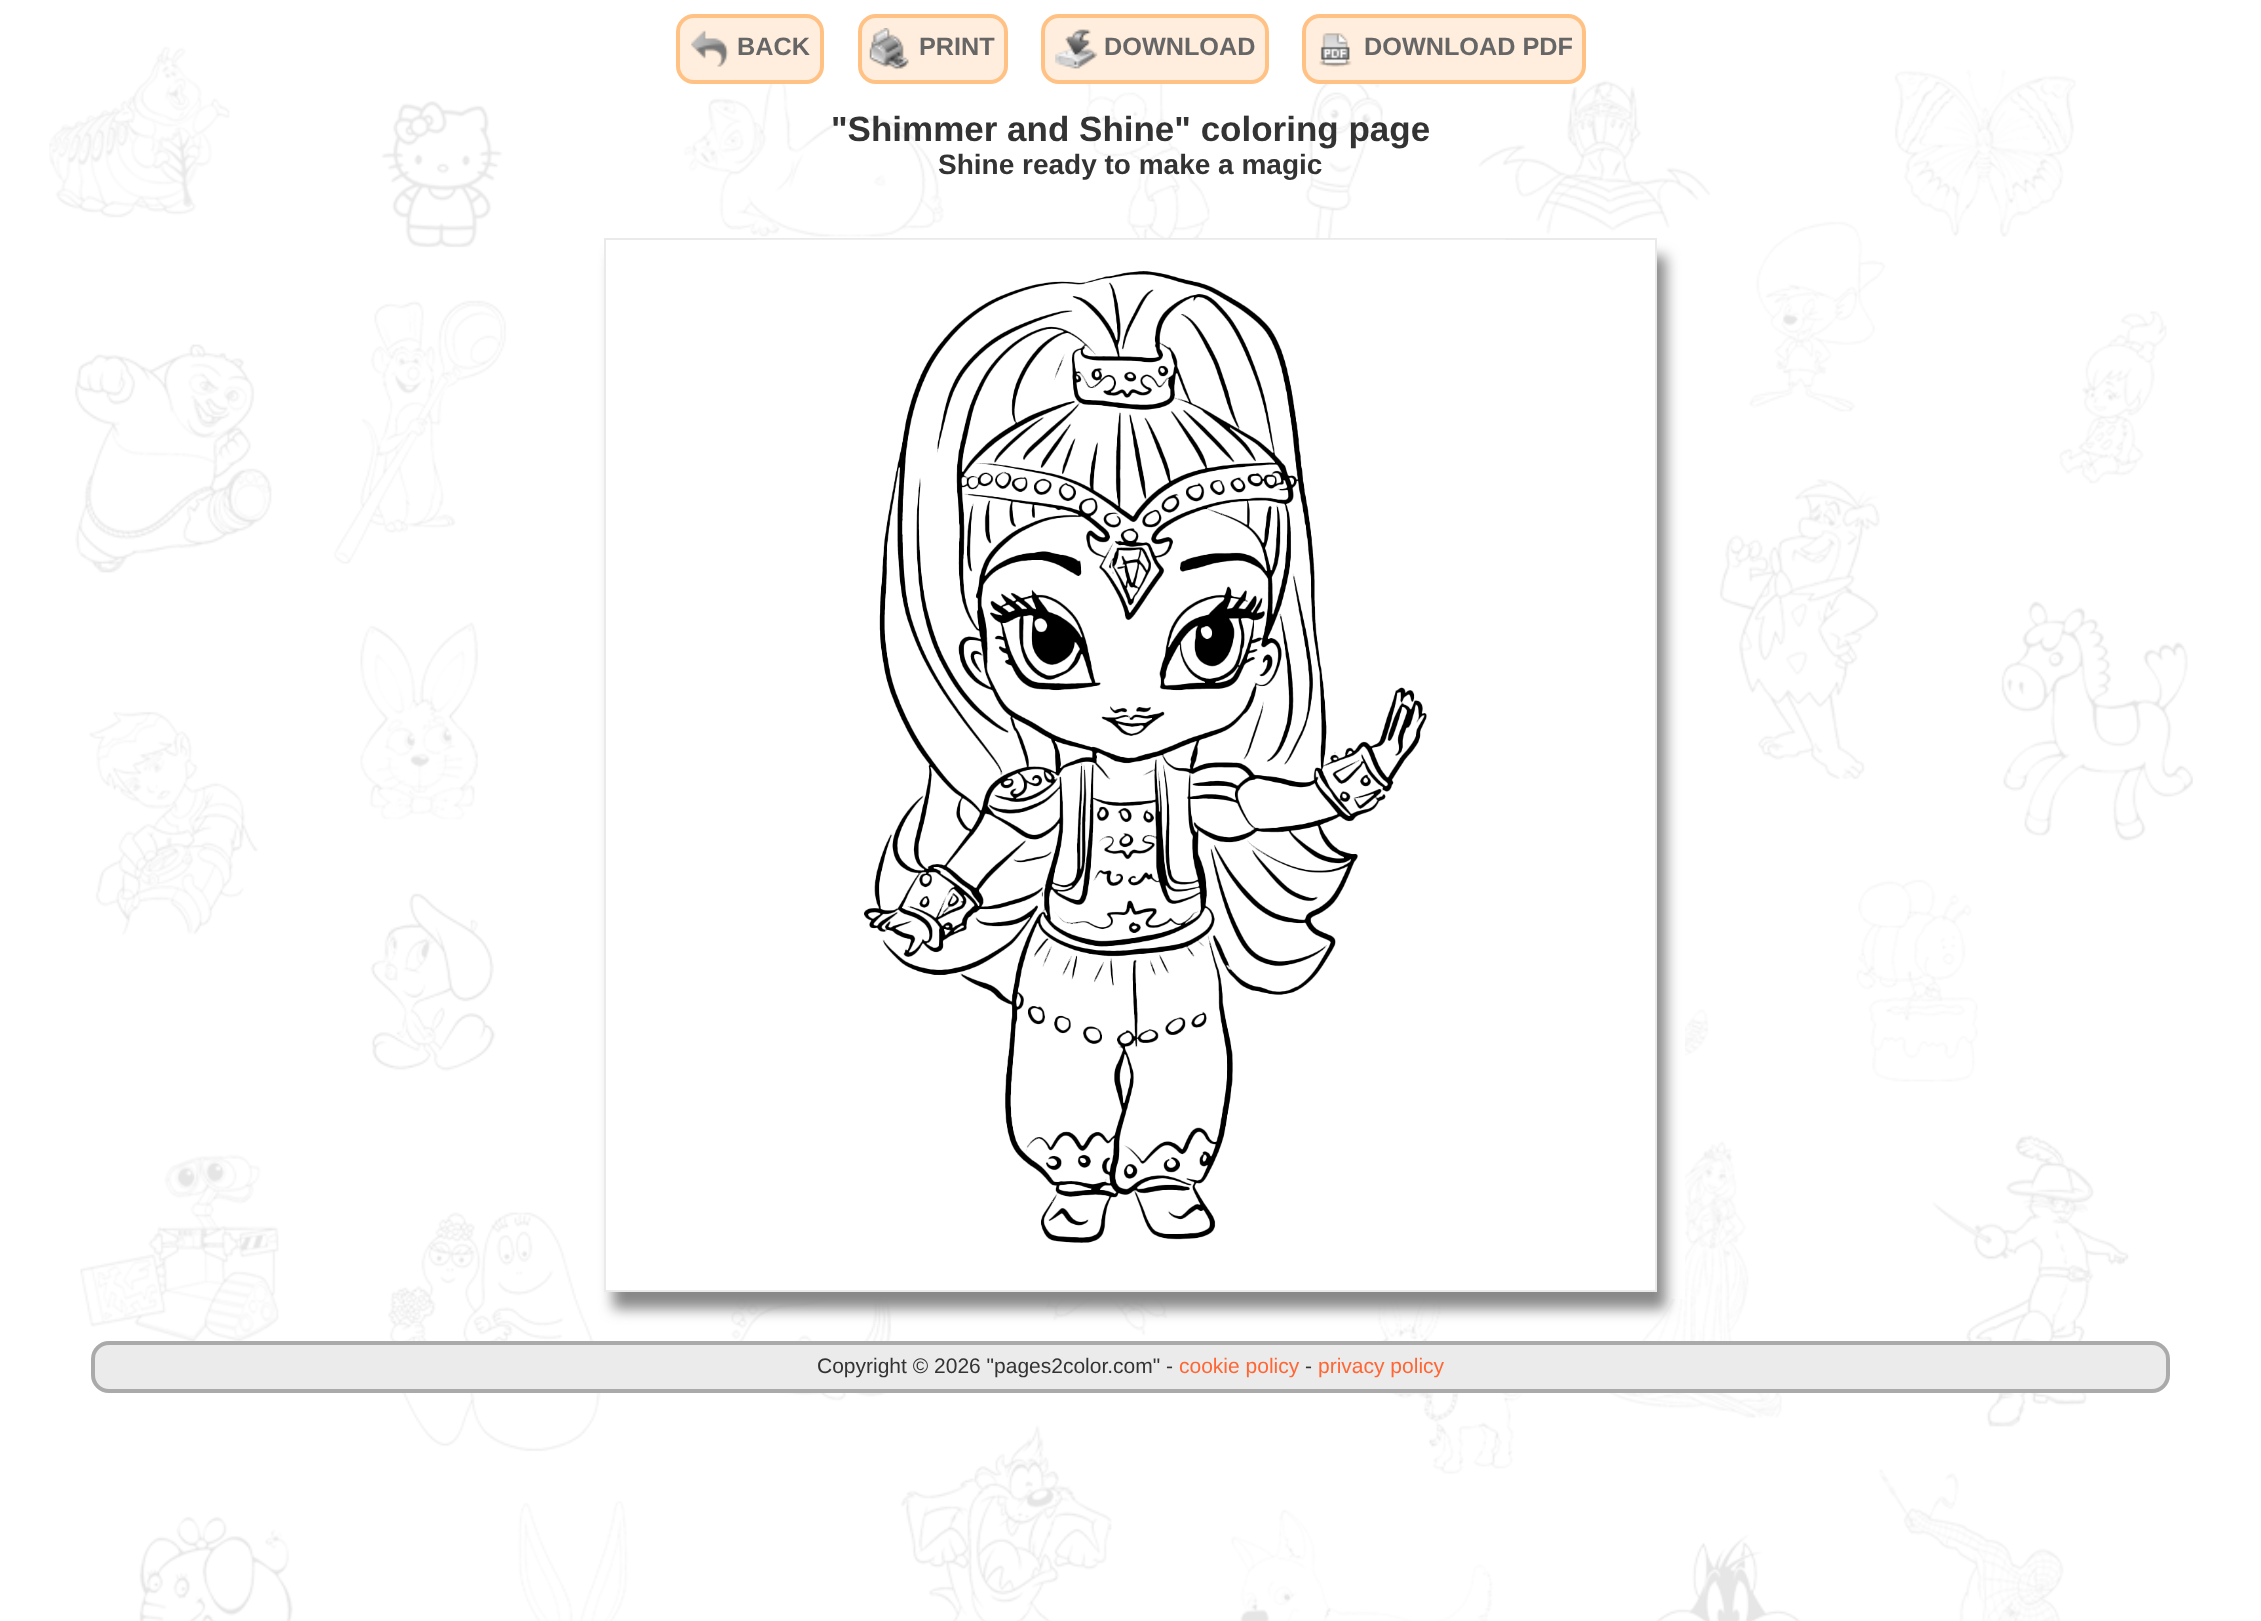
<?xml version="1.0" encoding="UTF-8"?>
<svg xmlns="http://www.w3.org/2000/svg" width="2261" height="1621">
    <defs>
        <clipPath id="clip1"><path d="M 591 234 H 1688 V 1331 H 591 Z M 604 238 H 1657 V 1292 H 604 Z" clip-rule="evenodd"/></clipPath>
        <filter id="blur1" x="-50%" y="-200%" width="200%" height="500%"><feGaussianBlur stdDeviation="7"/></filter>
    </defs>
    <rect width="100%" height="100%" fill="#FFFFFF"/>
    <image x="49" y="42" width="2144" height="1579" href="img_01.png"/>
    <rect x="678" y="16" width="144" height="66" rx="16" fill="#FFEEDD" stroke="#FFC184" stroke-width="4"/>
    <image x="691" y="30" width="38" height="37" href="img_02.png"/>
    <text x="737" y="55" font-family="Liberation Sans" font-size="25.25" font-weight="700" fill="#666666">BACK</text>
    <rect x="860" y="16" width="146" height="66" rx="16" fill="#FFEEDD" stroke="#FFC184" stroke-width="4"/>
    <image x="869" y="28" width="40" height="42" href="img_03.png"/>
    <text x="919" y="55" font-family="Liberation Sans" font-size="25.25" font-weight="700" fill="#666666">PRINT</text>
    <rect x="1043" y="16" width="224" height="66" rx="16" fill="#FFEEDD" stroke="#FFC184" stroke-width="4"/>
    <image x="1055" y="29" width="43" height="40" href="img_04.png"/>
    <text x="1104" y="55" font-family="Liberation Sans" font-size="25.25" font-weight="700" fill="#666666">DOWNLOAD</text>
    <rect x="1304" y="16" width="280" height="66" rx="16" fill="#FFEEDD" stroke="#FFC184" stroke-width="4"/>
    <image x="1319" y="33" width="33" height="34" href="img_05.png"/>
    <text x="1364" y="55" font-family="Liberation Sans" font-size="25.25" font-weight="700" fill="#666666">DOWNLOAD PDF</text>
    <text x="831" y="141" font-family="Liberation Sans" font-size="35" font-weight="700" fill="#333333">"Shimmer and Shine" coloring page</text>
    <text x="938" y="174" font-family="Liberation Sans" font-size="28" font-weight="700" fill="#333333">Shine ready to make a magic</text>
    <rect x="576" y="238" width="1109" height="1061" fill="#FFFFFF"/>
    <g clip-path="url(#clip1)">
        <rect x="613" y="256" width="1053" height="1053" fill="#888888" filter="url(#blur1)"/>
    </g>
    <rect x="605" y="239" width="1051" height="1052" fill="none" stroke="#EAEAEA" stroke-width="2"/>
    <image x="756" y="239" width="749" height="1004" href="img_06.png"/>
    <rect x="93" y="1343" width="2075" height="48" rx="16" fill="#EBEBEB" stroke="#AAAAAA" stroke-width="4"/>
    <text x="817" y="1373" font-family="Liberation Sans" font-size="21" fill="#333333">Copyright © 2026 "pages2color.com" -</text>
    <text x="1179" y="1373" font-family="Liberation Sans" font-size="21" fill="#FF6633">cookie policy</text>
    <text x="1305" y="1373" font-family="Liberation Sans" font-size="21" fill="#333333">-</text>
    <text x="1318" y="1373" font-family="Liberation Sans" font-size="21" fill="#FF6633">privacy policy</text>
</svg>
